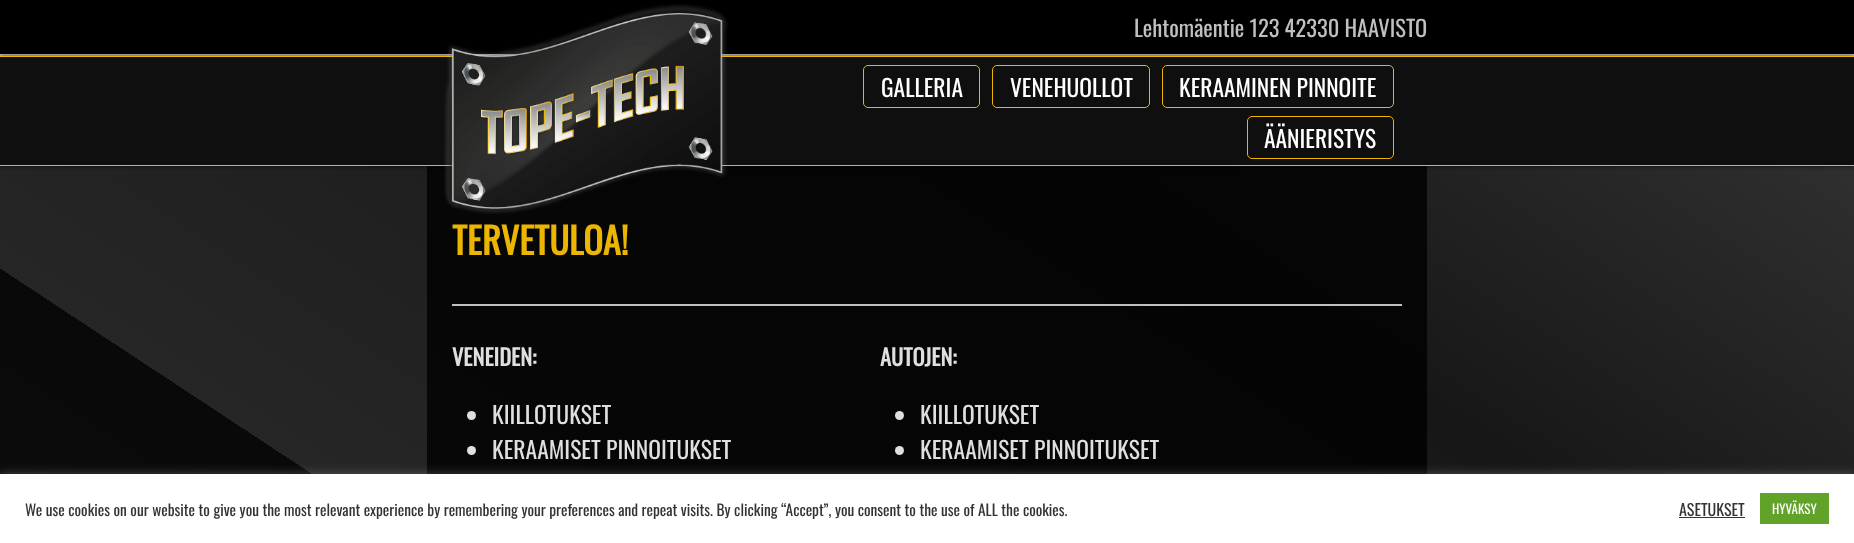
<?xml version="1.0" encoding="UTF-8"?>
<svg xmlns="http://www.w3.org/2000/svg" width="1854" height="543">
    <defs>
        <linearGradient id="g1" gradientUnits="userSpaceOnUse" x1="366" y1="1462" x2="1488" y2="-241"><stop offset="0" stop-color="#131313"/><stop offset="0.39" stop-color="#090909"/><stop offset="0.39" stop-color="#262626"/><stop offset="0.72" stop-color="#171717"/><stop offset="1" stop-color="#373737"/></linearGradient>
        <filter id="blur1" x="-50%" y="-200%" width="200%" height="500%"><feGaussianBlur stdDeviation="2.5"/></filter>
        <filter id="blur2" x="-50%" y="-200%" width="200%" height="500%"><feGaussianBlur stdDeviation="5"/></filter>
    </defs>
    <rect width="100%" height="100%" fill="#FFFFFF"/>
    <rect x="0" y="166" width="1854" height="308" fill="url(#g1)"/>
    <rect x="0" y="0" width="1854" height="54" fill="#000000"/>
    <rect x="0" y="54" width="1854" height="2" fill="#C0C0C0"/>
    <text x="1134" y="37" font-family="Oswald" font-size="22.5" fill="#C0C0C0">Lehtomäentie 123 42330 HAAVISTO</text>
    <rect x="0" y="56" width="1854" height="110" fill="#000000" fill-opacity="0.7" filter="url(#blur1)"/>
    <rect x="0" y="57" width="1854" height="108" fill="#0F0F0F"/>
    <rect x="0" y="56" width="1854" height="1" fill="#EBB500"/>
    <rect x="0" y="165" width="1854" height="1" fill="#EBB500"/>
    <rect x="427" y="166" width="1000" height="308" fill="#000000" fill-opacity="0.8"/>
    <image x="444" y="4" width="284" height="210" href="img_01.png"/>
    <rect x="863.5" y="65.5" width="116" height="42" rx="4.5" fill="none" stroke="#EBB500"/>
    <text x="881" y="97" font-family="Oswald" font-size="23.5" fill="#FFFFFF">GALLERIA</text>
    <rect x="992.5" y="65.5" width="157" height="42" rx="4.5" fill="none" stroke="#EBB500"/>
    <text x="1010" y="97" font-family="Oswald" font-size="23.5" fill="#FFFFFF">VENEHUOLLOT</text>
    <rect x="1162.5" y="65.5" width="231" height="42" rx="4.5" fill="none" stroke="#EBB500"/>
    <text x="1179" y="97" font-family="Oswald" font-size="23.5" fill="#FFFFFF">KERAAMINEN PINNOITE</text>
    <rect x="1247.5" y="116.5" width="146" height="42" rx="4.5" fill="none" stroke="#EBB500"/>
    <text x="1264" y="148" font-family="Oswald" font-size="23.5" fill="#FFFFFF">ÄÄNIERISTYS</text>
    <rect x="452" y="304" width="950" height="2" fill="#C0C0C0"/>
    <text x="452" y="255" font-family="Oswald" font-size="36.5" font-weight="700" fill="#EBB500">TERVETULOA!</text>
    <text x="452" y="366" font-family="Oswald" font-size="22.5" font-weight="700" fill="#DFDFDF">VENEIDEN:</text>
    <circle cx="471.5" cy="415.5" r="4.5" fill="#DFDFDF"/>
    <text x="492" y="424" font-family="Oswald" font-size="23.6" fill="#DFDFDF">KIILLOTUKSET</text>
    <circle cx="471.5" cy="450.5" r="4.5" fill="#DFDFDF"/>
    <text x="492" y="459" font-family="Oswald" font-size="23.6" fill="#DFDFDF">KERAAMISET PINNOITUKSET</text>
    <text x="880" y="366" font-family="Oswald" font-size="22.5" font-weight="700" fill="#DFDFDF">AUTOJEN:</text>
    <circle cx="899.5" cy="415.5" r="4.5" fill="#DFDFDF"/>
    <text x="920" y="424" font-family="Oswald" font-size="23.6" fill="#DFDFDF">KIILLOTUKSET</text>
    <circle cx="899.5" cy="450.5" r="4.5" fill="#DFDFDF"/>
    <text x="920" y="459" font-family="Oswald" font-size="23.6" fill="#DFDFDF">KERAAMISET PINNOITUKSET</text>
    <rect x="0" y="473" width="1854" height="69" fill="#ACABAB" fill-opacity="0.3" filter="url(#blur2)"/>
    <rect x="0" y="474" width="1854" height="69" fill="#FFFFFF"/>
    <text x="25" y="516" font-family="Oswald" font-size="15.4" fill="#333333">We use cookies on our website to give you the most relevant experience by remembering your preferences and repeat visits. By clicking “Accept”, you consent to the use of ALL the cookies.</text>
    <text x="1679" y="516" font-family="Oswald" font-size="16" fill="#333333">ASETUKSET</text>
    <rect x="1679" y="517" width="66" height="1" fill="#333333"/>
    <rect x="1760" y="493" width="69" height="31" fill="#61A229"/>
    <text x="1772" y="514" font-family="Oswald" font-size="13" fill="#FFFFFF">HYVÄKSY</text>
</svg>
